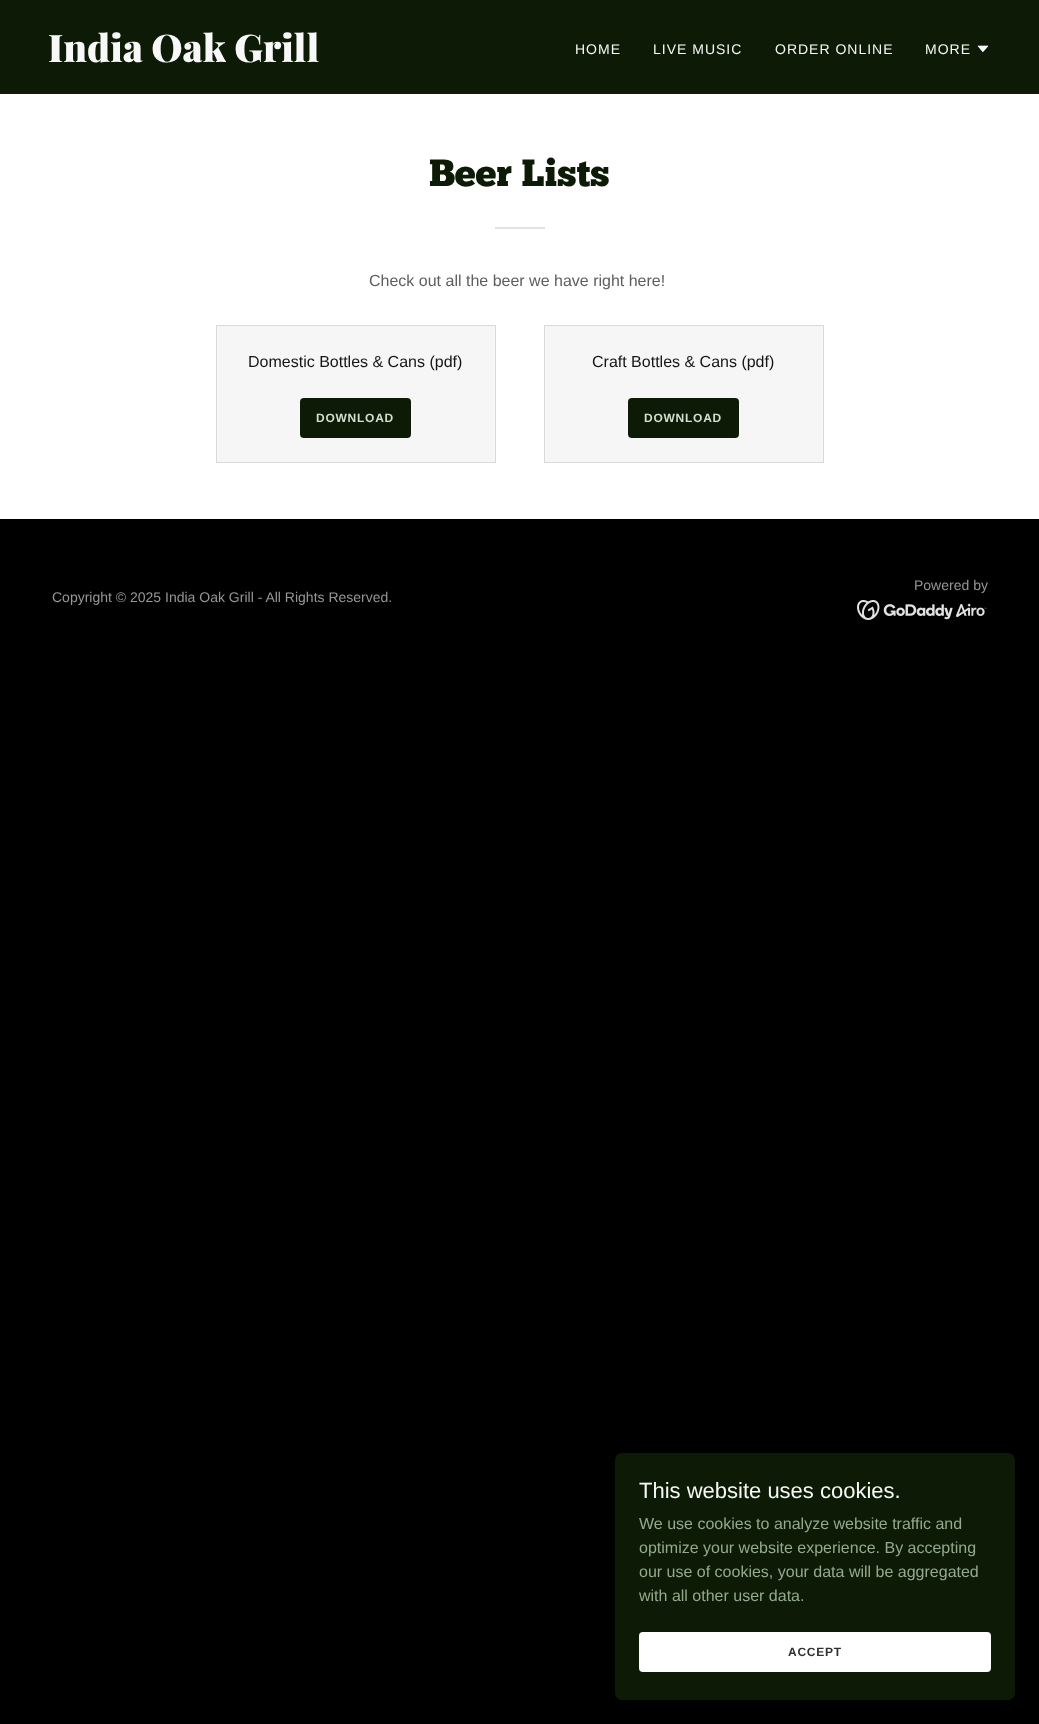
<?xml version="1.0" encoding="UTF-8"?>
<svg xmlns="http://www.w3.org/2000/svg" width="1039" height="1724">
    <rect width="100%" height="100%" fill="#000000"/>
    <rect x="0" y="0" width="1039" height="94" fill="#0C1A06"/>
    <text x="48" y="62" font-family="Playfair Display" font-size="38" font-weight="900" fill="#F7F8F7">India Oak Grill</text>
    <text x="575" y="54" font-family="Liberation Sans" font-size="14" letter-spacing="1" fill="#F7F8F7">HOME</text>
    <text x="653" y="54" font-family="Liberation Sans" font-size="14" letter-spacing="1" fill="#F7F8F7">LIVE MUSIC</text>
    <text x="775" y="54" font-family="Liberation Sans" font-size="14" letter-spacing="1" fill="#F7F8F7">ORDER ONLINE</text>
    <text x="925" y="54" font-family="Liberation Sans" font-size="14" letter-spacing="1" fill="#F7F8F7">MORE</text>
    <image x="977" y="45" width="12" height="8" href="img_01.png"/>
    <rect x="0" y="94" width="1039" height="425" fill="#FFFFFF"/>
    <text x="429" y="186" font-family="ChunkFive" font-size="38" fill="#0C1A06">Beer Lists</text>
    <rect x="495" y="227" width="50" height="2" fill="#E2E2E2"/>
    <text x="369" y="286" font-family="Liberation Sans" font-size="16" fill="#5E5E5E">Check out all the beer we have right here!</text>
    <rect x="216.5" y="325.5" width="279" height="137" fill="#F6F6F6" stroke="#DADADA"/>
    <text x="248" y="367" font-family="Liberation Sans" font-size="16" fill="#151515">Domestic Bottles &amp; Cans (pdf)</text>
    <rect x="300" y="398" width="111" height="40" rx="4" fill="#0C1A06"/>
    <text x="316" y="422" font-family="Liberation Sans" font-size="12" font-weight="700" letter-spacing="0.75" fill="#D3DFCF">DOWNLOAD</text>
    <rect x="544.5" y="325.5" width="279" height="137" fill="#F6F6F6" stroke="#DADADA"/>
    <text x="592" y="367" font-family="Liberation Sans" font-size="16" fill="#151515">Craft Bottles &amp; Cans (pdf)</text>
    <rect x="628" y="398" width="111" height="40" rx="4" fill="#0C1A06"/>
    <text x="644" y="422" font-family="Liberation Sans" font-size="12" font-weight="700" letter-spacing="0.75" fill="#D3DFCF">DOWNLOAD</text>
    <text x="914" y="590" font-family="Liberation Sans" font-size="14" fill="#969696">Powered by</text>
    <image x="857" y="600" width="130" height="20" href="img_02.png"/>
    <text x="52" y="602" font-family="Liberation Sans" font-size="14" fill="#969696">Copyright © 2025 India Oak Grill - All Rights Reserved.</text>
    <rect x="615" y="1453" width="400" height="247" rx="7" fill="#0C1A06"/>
    <text x="639" y="1498" font-family="Liberation Sans" font-size="22" fill="#F7F8F7">This website uses cookies.</text>
    <text font-family="Liberation Sans" font-size="16" fill="#93AB8C">
        <tspan x="639" y="1529">We use cookies to analyze website traffic and</tspan>
        <tspan x="639" y="1553">optimize your website experience. By accepting</tspan>
        <tspan x="639" y="1577">our use of cookies, your data will be aggregated</tspan>
        <tspan x="639" y="1601">with all other user data.</tspan>
    </text>
    <rect x="639" y="1632" width="352" height="40" rx="4" fill="#FFFFFF"/>
    <text x="788" y="1656" font-family="Liberation Sans" font-size="12" font-weight="700" letter-spacing="0.75" fill="#303030">ACCEPT</text>
</svg>
